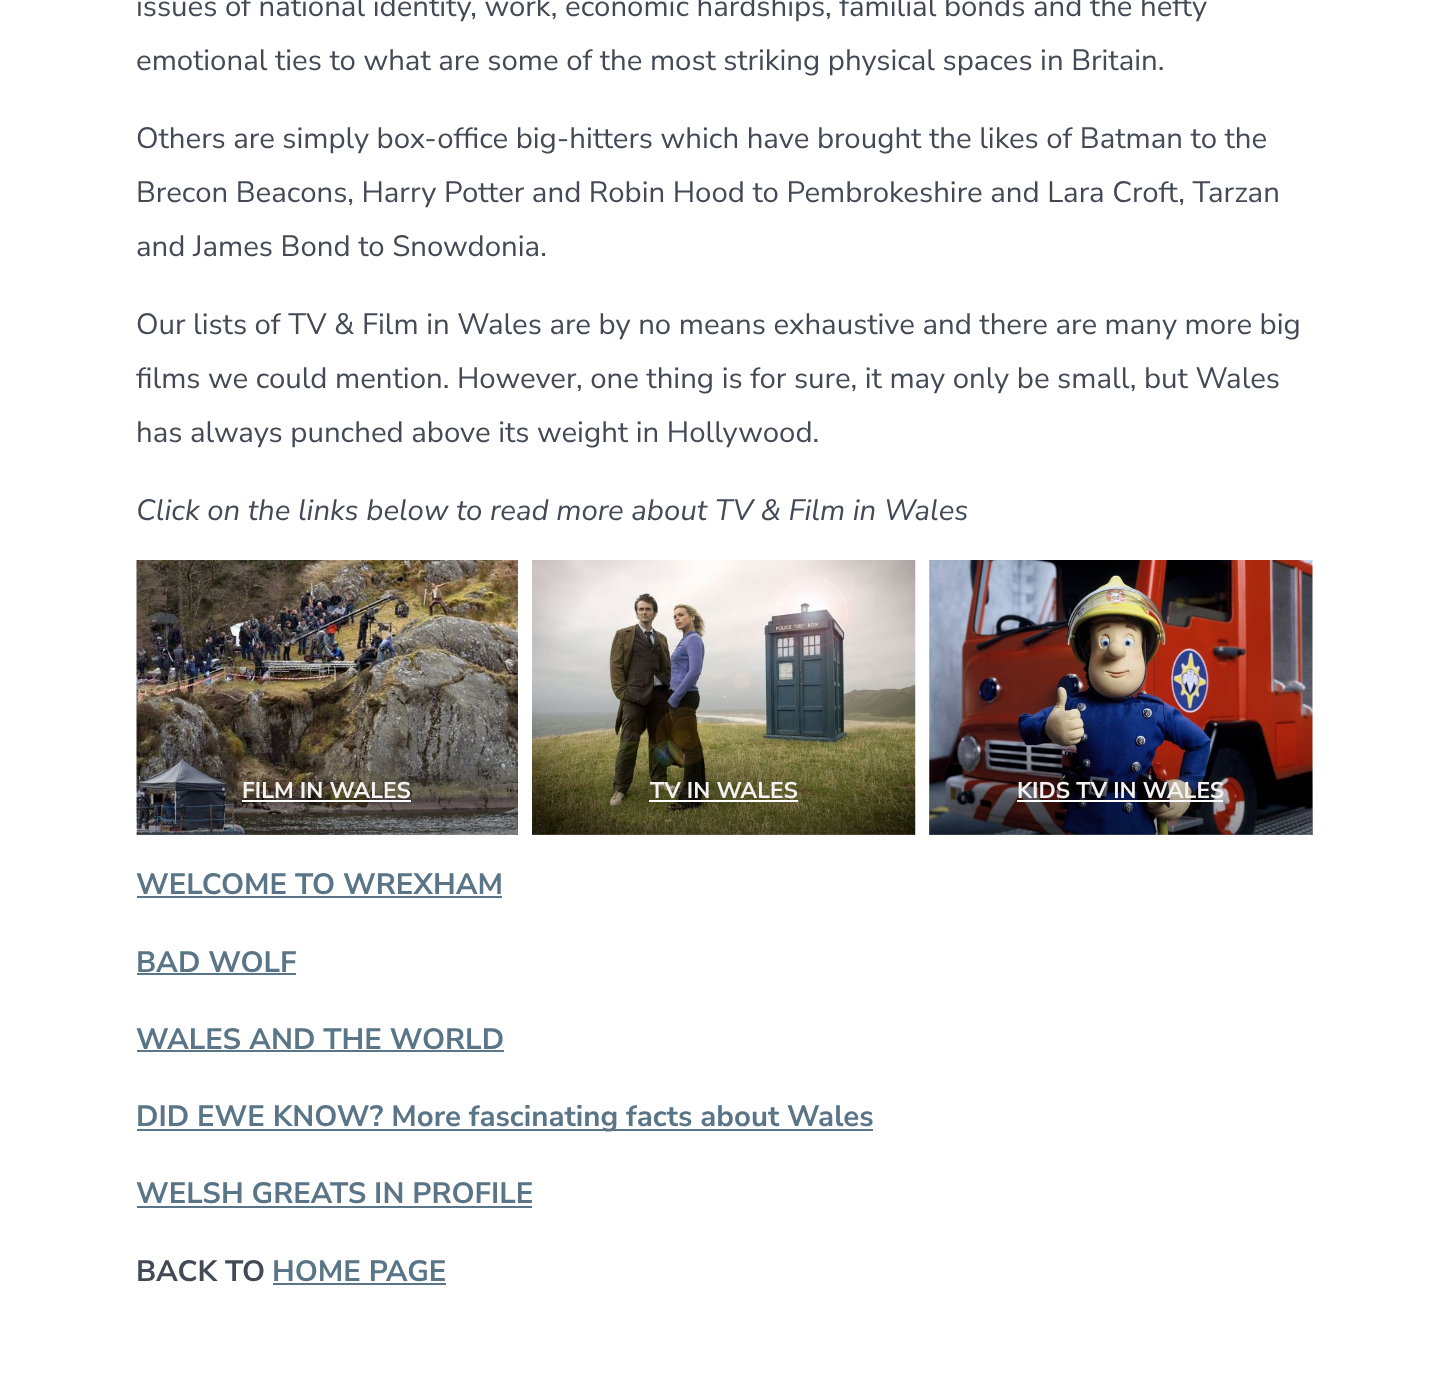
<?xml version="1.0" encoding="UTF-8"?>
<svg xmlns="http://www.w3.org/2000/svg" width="1446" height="1393">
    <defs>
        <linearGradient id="g1" gradientUnits="userSpaceOnUse" x1="327" y1="835" x2="327" y2="747"><stop offset="0" stop-color="#000000" stop-opacity="0.4"/><stop offset="1" stop-color="#000000" stop-opacity="0"/></linearGradient>
        <linearGradient id="g2" gradientUnits="userSpaceOnUse" x1="724" y1="835" x2="724" y2="747"><stop offset="0" stop-color="#000000" stop-opacity="0.4"/><stop offset="1" stop-color="#000000" stop-opacity="0"/></linearGradient>
        <linearGradient id="g3" gradientUnits="userSpaceOnUse" x1="1121" y1="835" x2="1121" y2="747"><stop offset="0" stop-color="#000000" stop-opacity="0.4"/><stop offset="1" stop-color="#000000" stop-opacity="0"/></linearGradient>
    </defs>
    <rect width="100%" height="100%" fill="#FFFFFF"/>
    <text font-family="Nunito Sans" font-size="29.4" fill="#434A56">
        <tspan x="136" y="16">issues of national identity, work, economic hardships, familial bonds and the hefty</tspan>
        <tspan x="136" y="70">emotional ties to what are some of the most striking physical spaces in Britain.</tspan>
    </text>
    <text font-family="Nunito Sans" font-size="29.4" fill="#434A56">
        <tspan x="136" y="148">Others are simply box-office big-hitters which have brought the likes of Batman to the</tspan>
        <tspan x="136" y="202">Brecon Beacons, Harry Potter and Robin Hood to Pembrokeshire and Lara Croft, Tarzan</tspan>
        <tspan x="136" y="256">and James Bond to Snowdonia.</tspan>
    </text>
    <text font-family="Nunito Sans" font-size="29.4" fill="#434A56">
        <tspan x="136" y="334">Our lists of TV &amp; Film in Wales are by no means exhaustive and there are many more big</tspan>
        <tspan x="136" y="388">films we could mention. However, one thing is for sure, it may only be small, but Wales</tspan>
        <tspan x="136" y="442">has always punched above its weight in Hollywood.</tspan>
    </text>
    <text x="136" y="520" font-family="Nunito Sans" font-size="29.4" font-weight="200" font-style="italic" fill="#434A56">Click on the links below to read more about TV &amp; Film in Wales</text>
    <image x="136" y="560" width="382" height="275" href="img_01.png"/>
    <rect x="137" y="752" width="381" height="83" fill="url(#g1)"/>
    <text x="242" y="798" font-family="Nunito Sans" font-size="22.75" font-weight="700" fill="#F4F2F1">FILM IN WALES</text>
    <rect x="242" y="800" width="169" height="2" fill="#FFFFFF"/>
    <image x="532" y="560" width="384" height="275" href="img_02.png"/>
    <rect x="532" y="752" width="383" height="83" fill="url(#g2)"/>
    <text x="650" y="798" font-family="Nunito Sans" font-size="22.75" font-weight="700" fill="#F4F2F1">TV IN WALES</text>
    <rect x="649" y="800" width="149" height="2" fill="#FFFFFF"/>
    <image x="929" y="560" width="384" height="275" href="img_03.png"/>
    <rect x="929" y="752" width="384" height="83" fill="url(#g3)"/>
    <text x="1017" y="798" font-family="Nunito Sans" font-size="22.75" font-weight="700" fill="#F4F2F1">KIDS TV IN WALES</text>
    <rect x="1017" y="800" width="206" height="2" fill="#FFFFFF"/>
    <text x="136" y="894" font-family="Nunito Sans" font-size="29.4" font-weight="700" fill="#5A7587">WELCOME TO WREXHAM</text>
    <rect x="137" y="896" width="365" height="2" fill="#5A7587"/>
    <text x="136" y="972" font-family="Nunito Sans" font-size="29.4" font-weight="700" fill="#5A7587">BAD WOLF</text>
    <rect x="137" y="973" width="159" height="2" fill="#5A7587"/>
    <text x="136" y="1049" font-family="Nunito Sans" font-size="29.4" font-weight="700" fill="#5A7587">WALES AND THE WORLD</text>
    <rect x="137" y="1050" width="367" height="2" fill="#5A7587"/>
    <rect x="137" y="1129" width="736" height="2" fill="#5A7587"/>
    <text x="136" y="1126" font-family="Nunito Sans" font-size="29.4" font-weight="700" fill="#5A7587">DID EWE KNOW? More fascinating facts about Wales</text>
    <text x="136" y="1203" font-family="Nunito Sans" font-size="29.4" font-weight="700" fill="#5A7587">WELSH GREATS IN PROFILE</text>
    <rect x="137" y="1206" width="395" height="2" fill="#5A7587"/>
    <text x="136" y="1281" font-family="Nunito Sans" font-size="29.4" font-weight="700" fill="#434A56">BACK TO</text>
    <text x="272" y="1281" font-family="Nunito Sans" font-size="29.4" font-weight="700" fill="#5A7587">HOME PAGE</text>
    <rect x="273" y="1283" width="173" height="2" fill="#5A7587"/>
</svg>
